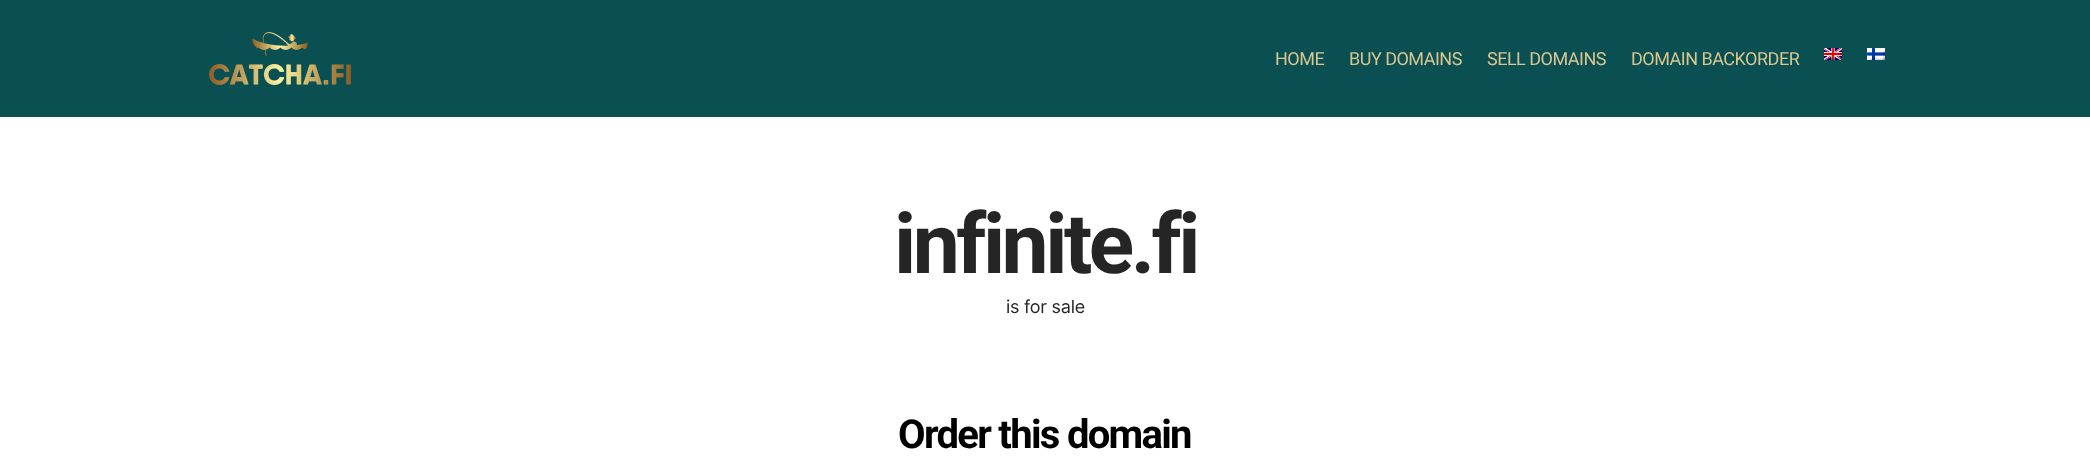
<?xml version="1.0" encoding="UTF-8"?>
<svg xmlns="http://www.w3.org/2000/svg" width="2090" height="461">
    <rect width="100%" height="100%" fill="#FFFFFF"/>
    <rect x="0" y="0" width="2090" height="117" fill="#0A4F51"/>
    <image x="209" y="32" width="142" height="53" href="img_01.png"/>
    <text x="1275" y="65" font-family="Roboto" font-size="18" letter-spacing="-0.5" fill="#D8C690">HOME</text>
    <text x="1349" y="65" font-family="Roboto" font-size="18" letter-spacing="-0.5" fill="#D8C690">BUY DOMAINS</text>
    <text x="1487" y="65" font-family="Roboto" font-size="18" letter-spacing="-0.5" fill="#D8C690">SELL DOMAINS</text>
    <text x="1631" y="65" font-family="Roboto" font-size="18" letter-spacing="-0.5" fill="#D8C690">DOMAIN BACKORDER</text>
    <image x="1824" y="48" width="18" height="12" href="img_02.png"/>
    <image x="1867" y="48" width="18" height="12" href="img_03.png"/>
    <text x="894" y="273" font-family="Roboto" font-size="84" font-weight="700" letter-spacing="-3.5" fill="#252525">infinite.fi</text>
    <text x="1006" y="313" font-family="Inter" font-size="18" letter-spacing="-0.25" fill="#252525">is for sale</text>
    <text x="898" y="448" font-family="Roboto" font-size="40" font-weight="700" letter-spacing="-1.7" fill="#000000">Order this domain</text>
</svg>
